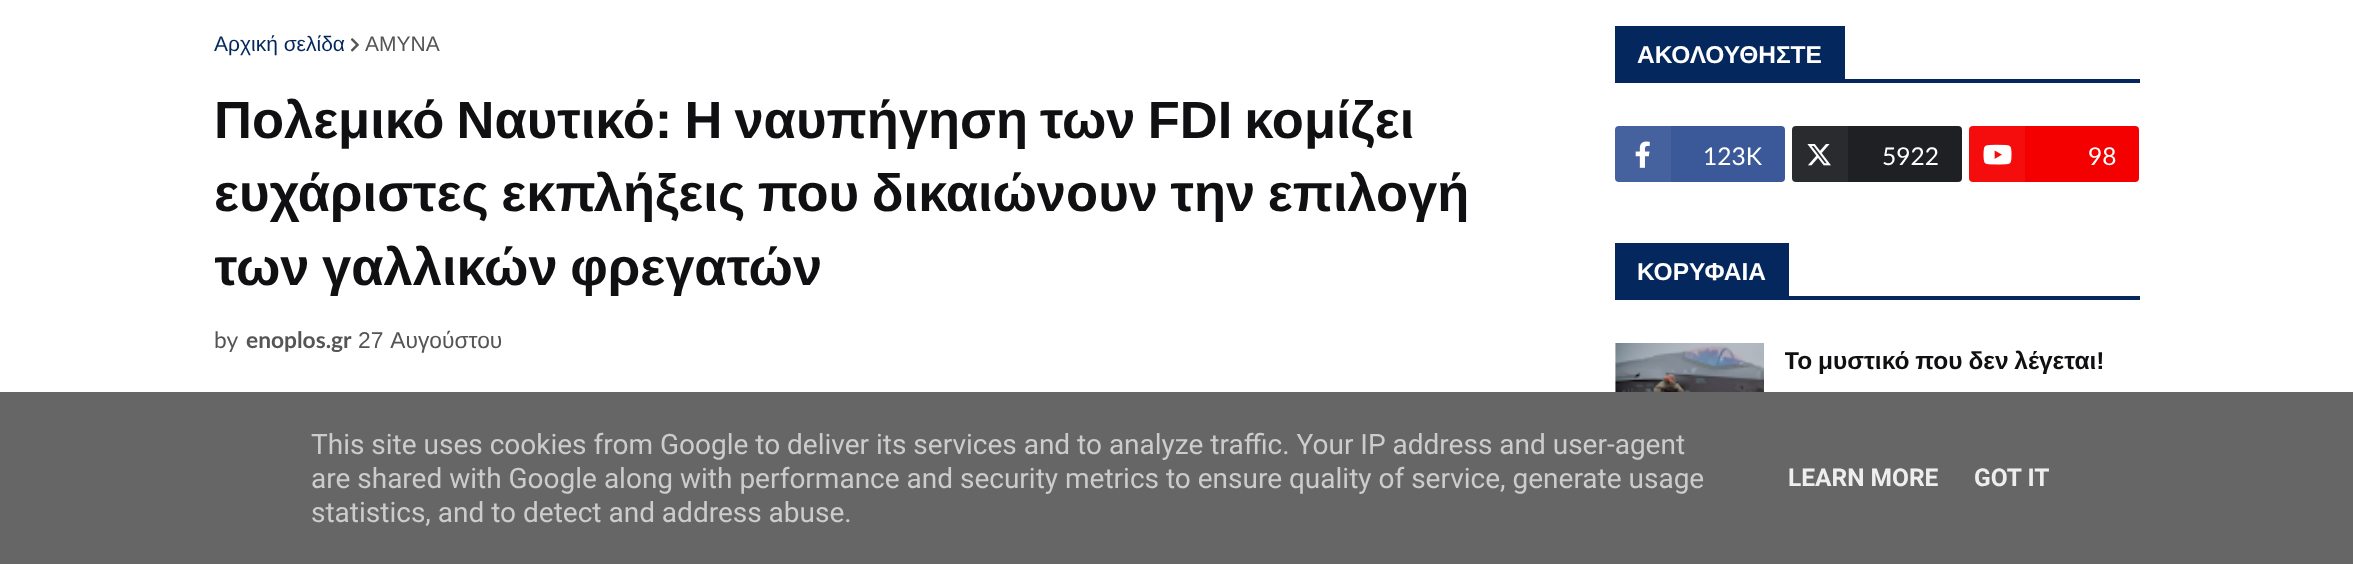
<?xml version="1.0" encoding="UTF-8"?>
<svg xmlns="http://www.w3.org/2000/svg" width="2353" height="564">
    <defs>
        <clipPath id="clip1"><rect x="215" y="26" width="1339" height="331"/></clipPath>
        <clipPath id="clip2"><rect x="1785" y="343" width="355" height="212"/></clipPath>
    </defs>
    <rect width="100%" height="100%" fill="#FFFFFF"/>
    <text x="214" y="51" font-family="Liberation Sans" font-size="21" fill="#04275E">Αρχική σελίδα</text>
    <image x="350" y="38" width="9" height="14" href="img_01.png"/>
    <text x="365" y="51" font-family="Liberation Sans" font-size="21" fill="#555555">ΑΜΥΝΑ</text>
    <text font-family="Liberation Sans" font-size="52.5" font-weight="700" fill="#101012">
        <tspan x="214" y="138" word-spacing="-2.5">Πολεμικό Ναυτικό: Η ναυπήγηση των FDI κομίζει</tspan>
        <tspan x="214" y="211" word-spacing="-2">ευχάριστες εκπλήξεις που δικαιώνουν την επιλογή</tspan>
    </text>
    <g clip-path="url(#clip1)">
        <text x="214" y="285" word-spacing="-2" font-family="Liberation Sans" font-size="52.5" font-weight="700" fill="#101012">των γαλλικών φρεγατών</text>
    </g>
    <text x="214" y="348" font-family="Lato" font-size="22.75" fill="#555555">by</text>
    <text x="246" y="348" font-family="Lato" font-size="22.75" font-weight="700" fill="#555555">enoplos.gr</text>
    <text x="358" y="348" word-spacing="2" font-family="Liberation Sans" font-size="22.75" fill="#555555">27 Αυγούστου</text>
    <rect x="1615" y="79" width="525" height="4" fill="#04275E"/>
    <rect x="1615" y="26" width="230" height="53" fill="#04275E"/>
    <text x="1637" y="63" font-family="Liberation Sans" font-size="24.5" font-weight="700" fill="#FFFFFF">ΑΚΟΛΟΥΘΗΣΤΕ</text>
    <rect x="1615" y="126" width="170" height="56" rx="4" fill="#3B5999"/>
    <rect x="1615" y="126" width="56" height="56" fill="#FFFFFF" fill-opacity="0.05"/>
    <image x="1635" y="141" width="15" height="27" href="img_02.png"/>
    <text x="1703" y="165" font-family="Lato" font-size="24.5" fill="#FFFFFF">123Κ</text>
    <rect x="1792" y="126" width="170" height="56" rx="4" fill="#1F2024"/>
    <rect x="1792" y="126" width="56" height="56" fill="#FFFFFF" fill-opacity="0.05"/>
    <image x="1807" y="144" width="24" height="22" href="img_03.png"/>
    <text x="1882" y="165" font-family="Lato" font-size="24.5" fill="#FFFFFF">5922</text>
    <rect x="1969" y="126" width="170" height="56" rx="4" fill="#F50000"/>
    <rect x="1969" y="126" width="56" height="56" fill="#FFFFFF" fill-opacity="0.05"/>
    <image x="1983" y="144" width="29" height="21" href="img_04.png"/>
    <text x="2088" y="165" font-family="Lato" font-size="24.5" fill="#FFFFFF">98</text>
    <rect x="1615" y="296" width="525" height="4" fill="#04275E"/>
    <rect x="1615" y="243" width="174" height="53" fill="#04275E"/>
    <text x="1637" y="280" font-family="Liberation Sans" font-size="24.5" font-weight="700" fill="#FFFFFF">ΚΟΡΥΦΑΙΑ</text>
    <rect x="1615" y="343" width="1" height="49" fill="#F7F7F7"/>
    <image x="1615" y="343" width="149" height="49" href="img_05.png"/>
    <g clip-path="url(#clip2)">
        <text x="1784" y="369" word-spacing="-1" font-family="Liberation Sans" font-size="24.5" font-weight="700" fill="#101012">Το μυστικό που δεν λέγεται!</text>
    </g>
    <rect x="0" y="392" width="2353" height="172" fill="#666666"/>
    <text font-family="Roboto" font-size="28" fill="#CCCCCC">
        <tspan x="311" y="454">This site uses cookies from Google to deliver its services and to analyze traffic. Your IP address and user-agent</tspan>
        <tspan x="311" y="488">are shared with Google along with performance and security metrics to ensure quality of service, generate usage</tspan>
        <tspan x="311" y="522">statistics, and to detect and address abuse.</tspan>
    </text>
    <text x="1788" y="486" font-family="Roboto" font-size="24.5" font-weight="700" fill="#EEEEEE">LEARN MORE</text>
    <text x="1974" y="486" font-family="Roboto" font-size="24.5" font-weight="700" fill="#EEEEEE">GOT IT</text>
</svg>
